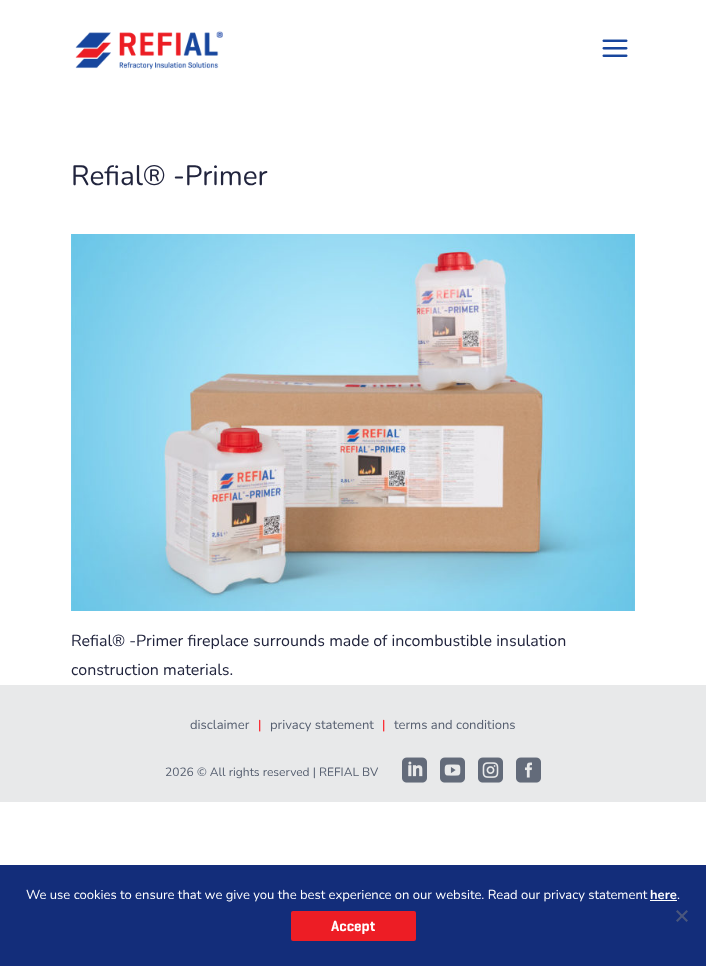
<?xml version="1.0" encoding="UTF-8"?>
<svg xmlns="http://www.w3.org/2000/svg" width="706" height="966">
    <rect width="100%" height="100%" fill="#FFFFFF"/>
    <image x="75" y="31" width="148" height="39" href="img_01.png"/>
    <image x="602" y="39" width="26" height="18" href="img_02.png"/>
    <text x="71" y="185" font-family="Nunito" font-size="28" fill="#21243D">Refial® -Primer</text>
    <image x="71" y="234" width="564" height="377" href="img_03.png"/>
    <text font-family="Nunito" font-size="16" fill="#21243D">
        <tspan x="71" y="646">Refial® -Primer fireplace surrounds made of incombustible insulation</tspan>
        <tspan x="71" y="675">construction materials.</tspan>
    </text>
    <rect x="0" y="685" width="706" height="117" fill="#E8E9EA"/>
    <text x="190" y="729" font-family="Nunito" font-size="13" fill="#555E6F">disclaimer</text>
    <text x="258" y="729" font-family="Nunito" font-size="13" fill="#FF0009">|</text>
    <text x="270" y="729" font-family="Nunito" font-size="13" fill="#555E6F">privacy statement</text>
    <text x="382" y="729" font-family="Nunito" font-size="13" fill="#FF0009">|</text>
    <text x="394" y="729" font-family="Nunito" font-size="13" fill="#555E6F">terms and conditions</text>
    <text x="165" y="776" font-family="Nunito" font-size="12" fill="#555E6F">2026 © All rights reserved | REFIAL BV</text>
    <image x="402" y="757" width="25" height="26" href="img_04.png"/>
    <image x="440" y="757" width="25" height="26" href="img_05.png"/>
    <image x="478" y="757" width="25" height="26" href="img_06.png"/>
    <image x="516" y="757" width="25" height="26" href="img_07.png"/>
    <rect x="0" y="865" width="706" height="101" fill="#132D7A"/>
    <text x="26" y="899" font-family="Nunito" font-size="13" fill="#FFFFFF">We use cookies to ensure that we give you the best experience on our website. Read our privacy statement</text>
    <text x="650" y="899" font-family="Nunito" font-size="13" font-weight="700" fill="#FFFFFF">here</text>
    <rect x="650" y="900" width="27" height="1" fill="#FFFFFF"/>
    <text x="677" y="899" font-family="Nunito" font-size="13" fill="#FFFFFF">.</text>
    <path d="M 686.5 910 L 688 911.5 L 677.5 922 L 676 920.5 Z" fill="#4A577D"/>
    <path d="M 676 911.5 L 677.5 910 L 688 920.5 L 686.5 922 Z" fill="#4A577D"/>
    <rect x="291" y="911" width="125" height="30" rx="2" fill="#ED1D25"/>
    <text x="331" y="931" font-family="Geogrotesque" font-size="15" font-weight="600" fill="#FFFFFF">Accept</text>
</svg>
